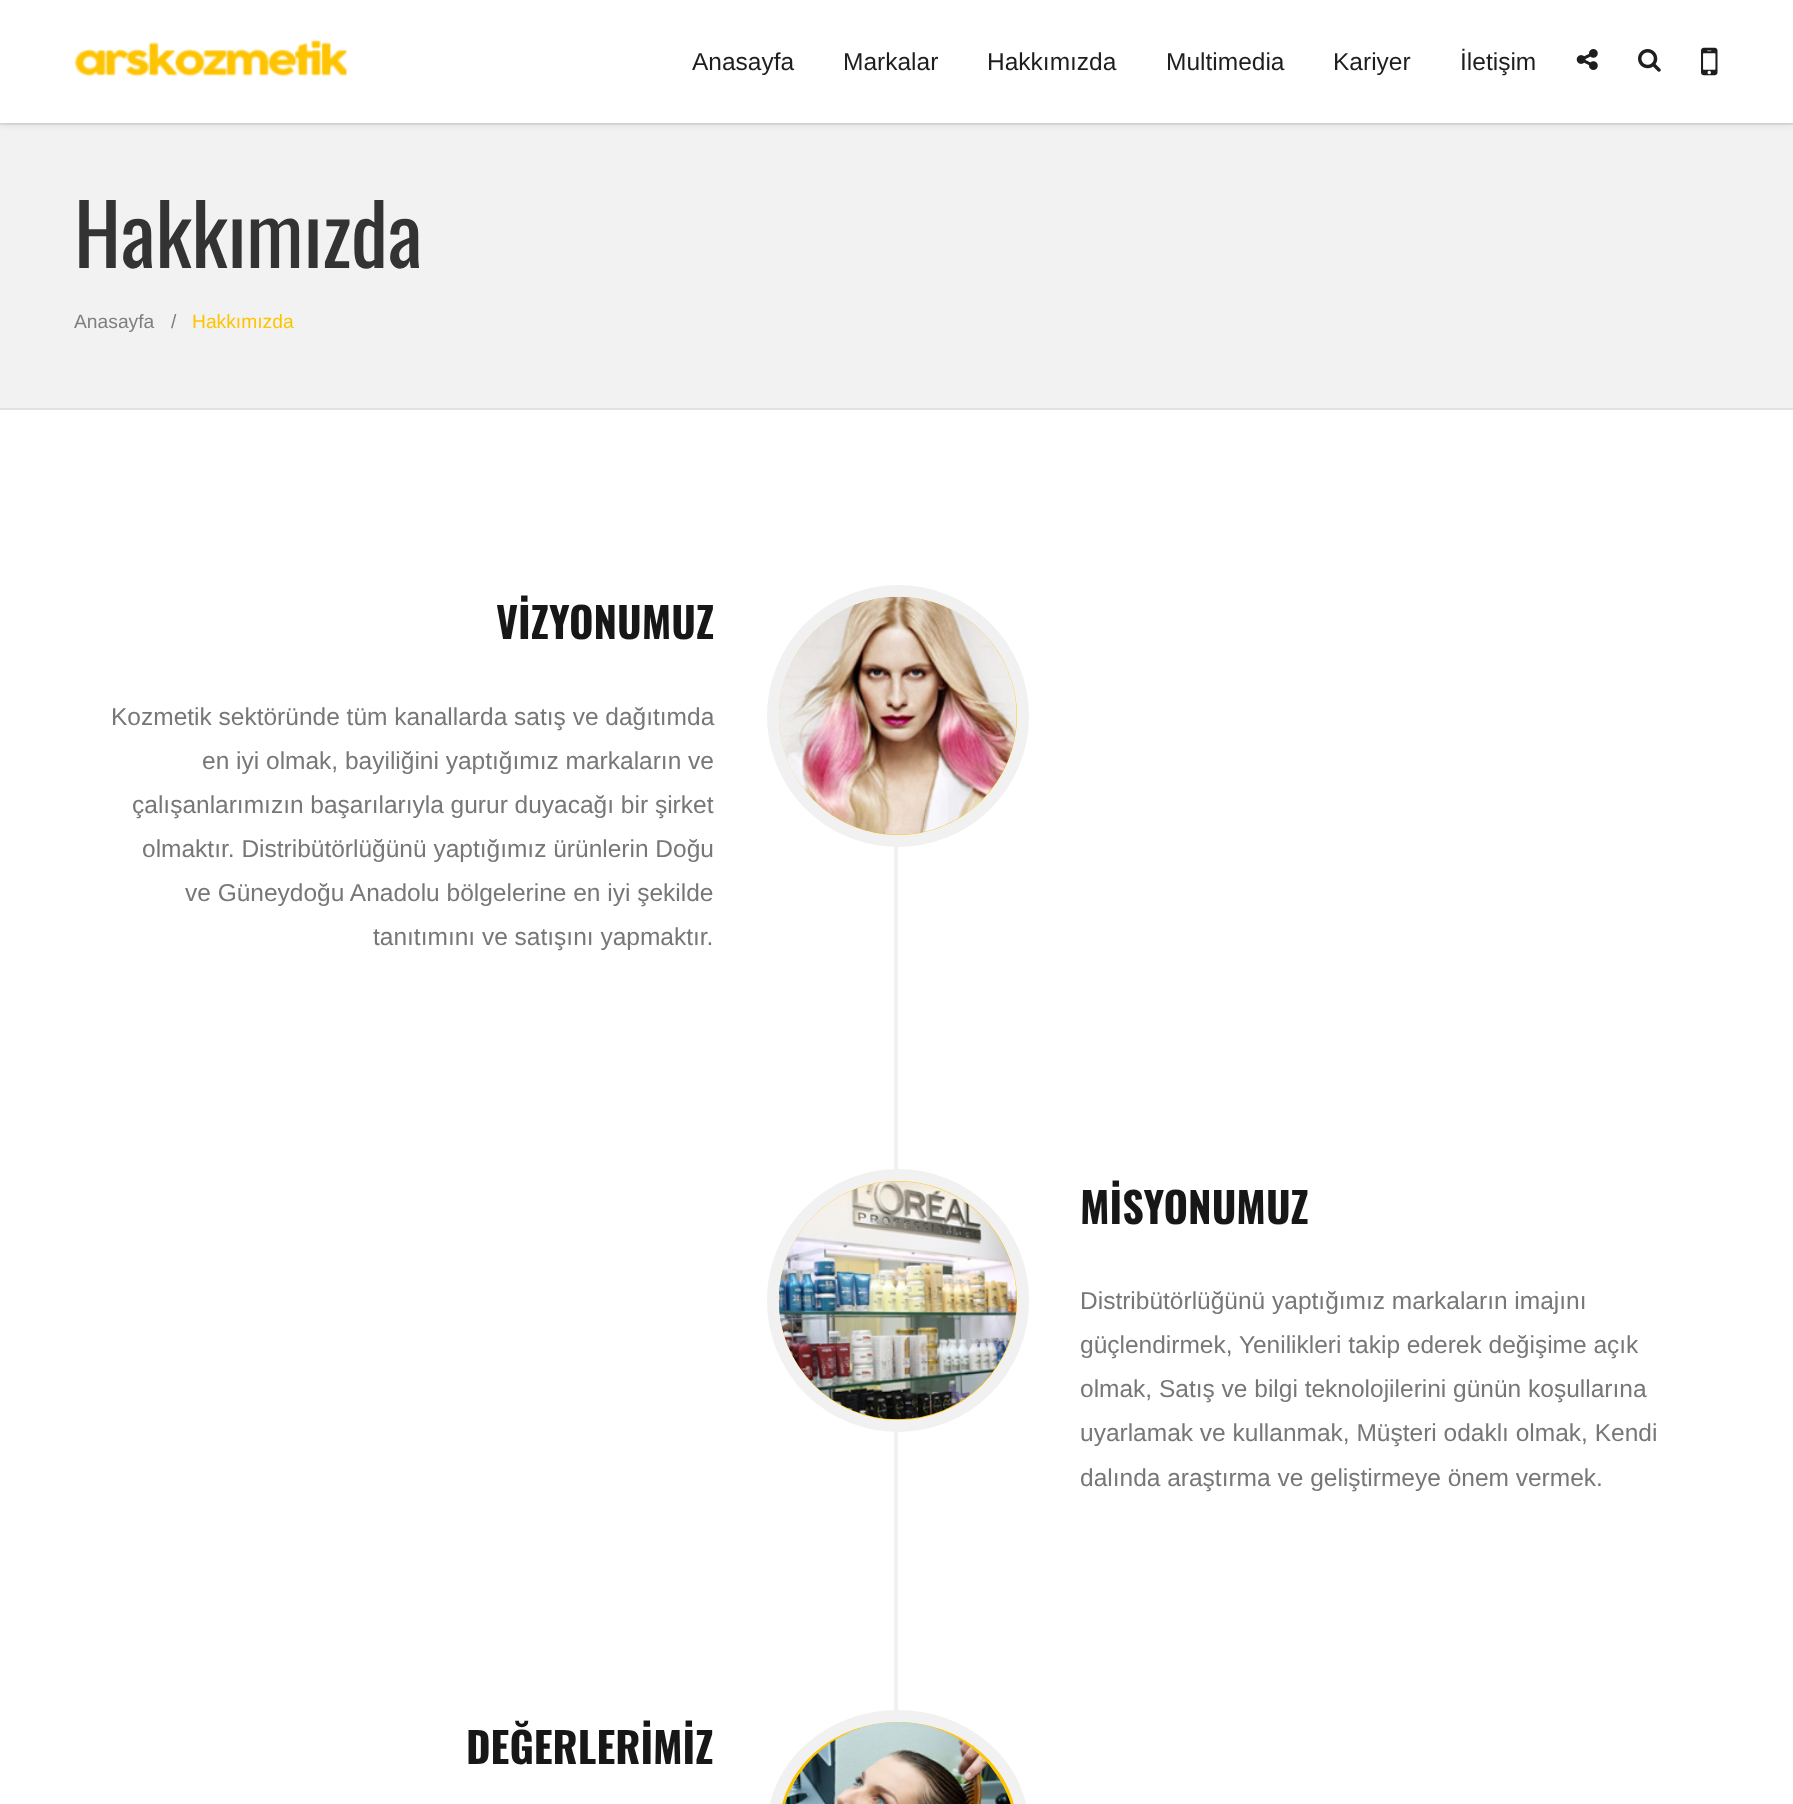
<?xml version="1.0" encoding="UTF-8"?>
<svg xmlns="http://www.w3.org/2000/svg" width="1793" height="1804">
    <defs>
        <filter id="blur1" x="-50%" y="-200%" width="200%" height="500%"><feGaussianBlur stdDeviation="4.5"/></filter>
    </defs>
    <rect width="100%" height="100%" fill="#FFFFFF"/>
    <rect x="0" y="125" width="1793" height="283" fill="#F2F2F2"/>
    <rect x="0" y="123" width="1793" height="2" fill="#E1E1E1"/>
    <rect x="0" y="0" width="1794" height="123" fill="#000000" fill-opacity="0.15" filter="url(#blur1)"/>
    <rect x="0" y="0" width="1793" height="123" fill="#FFFFFF"/>
    <image x="74" y="40" width="273" height="37" href="img_01.png"/>
    <text x="692" y="70" font-family="Arimo" font-size="24.5" fill="#1E1E1E">Anasayfa</text>
    <text x="843" y="70" font-family="Arimo" font-size="24.5" fill="#1E1E1E">Markalar</text>
    <text x="987" y="70" font-family="Arimo" font-size="24.5" fill="#1E1E1E">Hakkımızda</text>
    <text x="1166" y="70" font-family="Arimo" font-size="24.5" fill="#1E1E1E">Multimedia</text>
    <text x="1333" y="70" font-family="Arimo" font-size="24.5" fill="#1E1E1E">Kariyer</text>
    <text x="1460" y="70" font-family="Arimo" font-size="24.5" fill="#1E1E1E">İletişim</text>
    <image x="1576" y="49" width="22" height="21" href="img_02.png"/>
    <image x="1638" y="49" width="23" height="23" href="img_03.png"/>
    <image x="1701" y="47" width="17" height="29" href="img_04.png"/>
    <rect x="0" y="408" width="1793" height="2" fill="#E1E1E1"/>
    <text x="74" y="268" font-family="Oswald" font-size="84" fill="#333333">Hakkımızda</text>
    <text x="74" y="328" font-family="Arimo" font-size="19.25" fill="#7F7F7F">Anasayfa</text>
    <text x="171" y="328" font-family="Arimo" font-size="19.25" fill="#7F7F7F">/</text>
    <text x="192" y="328" font-family="Arimo" font-size="19.25" fill="#FFC400">Hakkımızda</text>
    <text x="496" y="639" font-family="Oswald" font-size="42" font-weight="700" fill="#171717">VİZYONUMUZ</text>
    <text x="111" y="725" font-family="Arimo" font-size="24.5" fill="#777777">Kozmetik sektöründe tüm kanallarda satış ve dağıtımda</text>
    <text x="202" y="769" font-family="Arimo" font-size="24.5" fill="#777777">en iyi olmak, bayiliğini yaptığımız markaların ve</text>
    <text x="132" y="813" font-family="Arimo" font-size="24.5" fill="#777777">çalışanlarımızın başarılarıyla gurur duyacağı bir şirket</text>
    <text x="142" y="857" font-family="Arimo" font-size="24.5" fill="#777777">olmaktır. Distribütörlüğünü yaptığımız ürünlerin Doğu</text>
    <text x="185" y="901" font-family="Arimo" font-size="24.5" fill="#777777">ve Güneydoğu Anadolu bölgelerine en iyi şekilde</text>
    <text x="373" y="945" font-family="Arimo" font-size="24.5" fill="#777777">tanıtımını ve satışını yapmaktır.</text>
    <rect x="894" y="585" width="4" height="1126" fill="#F1F1F1"/>
    <circle cx="898" cy="716" r="125" fill="#FFC400" stroke="#F1F1F1" stroke-width="12"/>
    <image x="779" y="596" width="238" height="239" href="img_05.png"/>
    <rect x="773" y="1175" width="250" height="251" rx="125" fill="#FFC400" stroke="#F1F1F1" stroke-width="12"/>
    <image x="778" y="1181" width="239" height="239" href="img_06.png"/>
    <text x="1080" y="1224" font-family="Oswald" font-size="42" font-weight="700" fill="#171717">MİSYONUMUZ</text>
    <text font-family="Arimo" font-size="24.5" fill="#777777">
        <tspan x="1080" y="1309">Distribütörlüğünü yaptığımız markaların imajını</tspan>
        <tspan x="1080" y="1353">güçlendirmek, Yenilikleri takip ederek değişime açık</tspan>
        <tspan x="1080" y="1397">olmak, Satış ve bilgi teknolojilerini günün koşullarına</tspan>
        <tspan x="1080" y="1441">uyarlamak ve kullanmak, Müşteri odaklı olmak, Kendi</tspan>
        <tspan x="1080" y="1486">dalında araştırma ve geliştirmeye önem vermek.</tspan>
    </text>
    <text x="466" y="1764" font-family="Oswald" font-size="42" font-weight="700" fill="#171717">DEĞERLERİMİZ</text>
    <rect x="773" y="1716" width="250" height="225" rx="125" fill="#FFC400" stroke="#F1F1F1" stroke-width="12"/>
    <image x="784" y="1722" width="227" height="82" href="img_07.png"/>
</svg>
